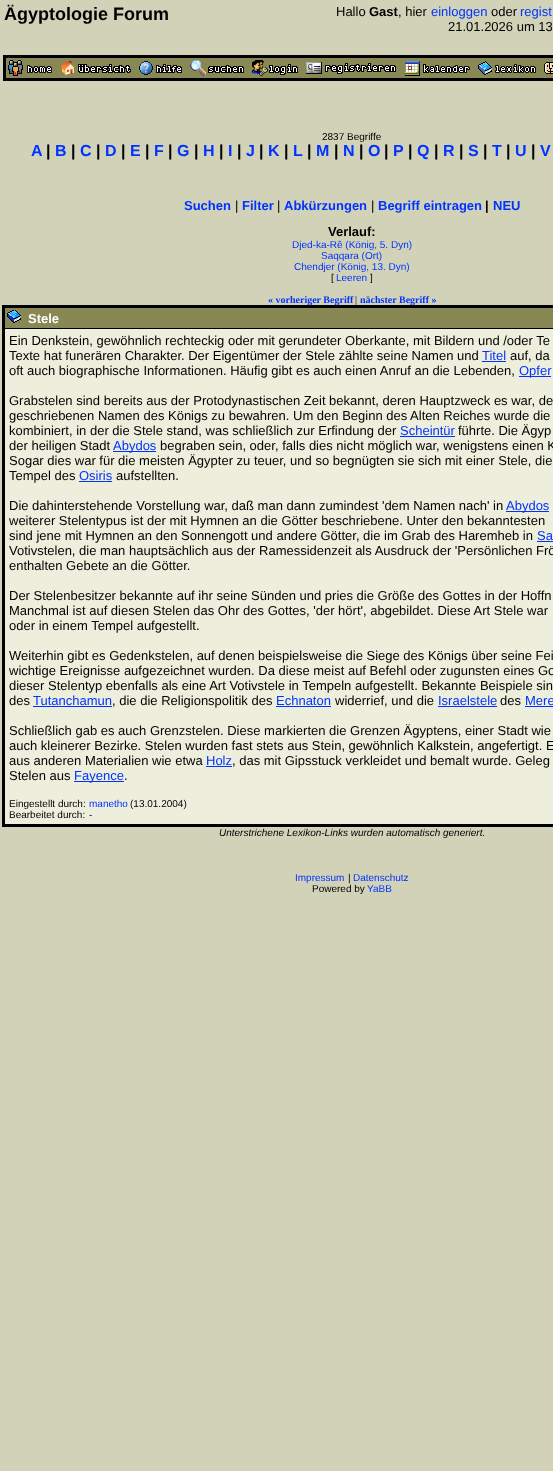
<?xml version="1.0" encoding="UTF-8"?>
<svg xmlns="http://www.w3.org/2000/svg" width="553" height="1471">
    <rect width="100%" height="100%" fill="#D2D2B9"/>
    <text x="4" y="20" font-family="Liberation Sans" font-size="18" font-weight="700" fill="#000000">Ägyptologie Forum</text>
    <text x="336" y="16" font-family="Liberation Sans" font-size="13" fill="#000000">Hallo</text>
    <text x="369" y="16" font-family="Liberation Sans" font-size="13" font-weight="700" fill="#000000">Gast</text>
    <text x="398" y="16" font-family="Liberation Sans" font-size="13" fill="#000000">, hier</text>
    <text x="431" y="16" font-family="Liberation Sans" font-size="13" fill="#0033FF">einloggen</text>
    <text x="491" y="16" font-family="Liberation Sans" font-size="13" fill="#000000">oder</text>
    <text x="520" y="16" font-family="Liberation Sans" font-size="13" fill="#0033FF">regist</text>
    <text x="448" y="31" font-family="Liberation Sans" font-size="13" fill="#000000">21.01.2026 um 13</text>
    <rect x="3" y="55" width="550" height="26" fill="#000000"/>
    <rect x="6" y="58" width="547" height="20" fill="#888855"/>
    <image x="8" y="60" width="44" height="16" href="img_01.png"/>
    <image x="60" y="61" width="71" height="14" href="img_02.png"/>
    <image x="139" y="61" width="43" height="14" href="img_03.png"/>
    <image x="190" y="60" width="54" height="16" href="img_04.png"/>
    <image x="252" y="60" width="46" height="16" href="img_05.png"/>
    <image x="306" y="62" width="90" height="12" href="img_06.png"/>
    <image x="404" y="61" width="66" height="15" href="img_07.png"/>
    <image x="478" y="61" width="58" height="14" href="img_08.png"/>
    <image x="544" y="62" width="9" height="12" href="img_09.png"/>
    <text x="322" y="140" font-family="Liberation Sans" font-size="10" fill="#000000">2837 Begriffe</text>
    <text x="31" y="156" font-family="Liberation Sans" font-size="16" font-weight="700" fill="#0033FF">A</text>
    <text x="46" y="156" font-family="Liberation Sans" font-size="16" font-weight="700" fill="#000000">|</text>
    <text x="55" y="156" font-family="Liberation Sans" font-size="16" font-weight="700" fill="#0033FF">B</text>
    <text x="71" y="156" font-family="Liberation Sans" font-size="16" font-weight="700" fill="#000000">|</text>
    <text x="80" y="156" font-family="Liberation Sans" font-size="16" font-weight="700" fill="#0033FF">C</text>
    <text x="96" y="156" font-family="Liberation Sans" font-size="16" font-weight="700" fill="#000000">|</text>
    <text x="105" y="156" font-family="Liberation Sans" font-size="16" font-weight="700" fill="#0033FF">D</text>
    <text x="121" y="156" font-family="Liberation Sans" font-size="16" font-weight="700" fill="#000000">|</text>
    <text x="130" y="156" font-family="Liberation Sans" font-size="16" font-weight="700" fill="#0033FF">E</text>
    <text x="145" y="156" font-family="Liberation Sans" font-size="16" font-weight="700" fill="#000000">|</text>
    <text x="154" y="156" font-family="Liberation Sans" font-size="16" font-weight="700" fill="#0033FF">F</text>
    <text x="168" y="156" font-family="Liberation Sans" font-size="16" font-weight="700" fill="#000000">|</text>
    <text x="177" y="156" font-family="Liberation Sans" font-size="16" font-weight="700" fill="#0033FF">G</text>
    <text x="194" y="156" font-family="Liberation Sans" font-size="16" font-weight="700" fill="#000000">|</text>
    <text x="203" y="156" font-family="Liberation Sans" font-size="16" font-weight="700" fill="#0033FF">H</text>
    <text x="219" y="156" font-family="Liberation Sans" font-size="16" font-weight="700" fill="#000000">|</text>
    <text x="228" y="156" font-family="Liberation Sans" font-size="16" font-weight="700" fill="#0033FF">I</text>
    <text x="237" y="156" font-family="Liberation Sans" font-size="16" font-weight="700" fill="#000000">|</text>
    <text x="246" y="156" font-family="Liberation Sans" font-size="16" font-weight="700" fill="#0033FF">J</text>
    <text x="259" y="156" font-family="Liberation Sans" font-size="16" font-weight="700" fill="#000000">|</text>
    <text x="268" y="156" font-family="Liberation Sans" font-size="16" font-weight="700" fill="#0033FF">K</text>
    <text x="284" y="156" font-family="Liberation Sans" font-size="16" font-weight="700" fill="#000000">|</text>
    <text x="293" y="156" font-family="Liberation Sans" font-size="16" font-weight="700" fill="#0033FF">L</text>
    <text x="307" y="156" font-family="Liberation Sans" font-size="16" font-weight="700" fill="#000000">|</text>
    <text x="316" y="156" font-family="Liberation Sans" font-size="16" font-weight="700" fill="#0033FF">M</text>
    <text x="334" y="156" font-family="Liberation Sans" font-size="16" font-weight="700" fill="#000000">|</text>
    <text x="343" y="156" font-family="Liberation Sans" font-size="16" font-weight="700" fill="#0033FF">N</text>
    <text x="359" y="156" font-family="Liberation Sans" font-size="16" font-weight="700" fill="#000000">|</text>
    <text x="368" y="156" font-family="Liberation Sans" font-size="16" font-weight="700" fill="#0033FF">O</text>
    <text x="384" y="156" font-family="Liberation Sans" font-size="16" font-weight="700" fill="#000000">|</text>
    <text x="393" y="156" font-family="Liberation Sans" font-size="16" font-weight="700" fill="#0033FF">P</text>
    <text x="408" y="156" font-family="Liberation Sans" font-size="16" font-weight="700" fill="#000000">|</text>
    <text x="417" y="156" font-family="Liberation Sans" font-size="16" font-weight="700" fill="#0033FF">Q</text>
    <text x="434" y="156" font-family="Liberation Sans" font-size="16" font-weight="700" fill="#000000">|</text>
    <text x="443" y="156" font-family="Liberation Sans" font-size="16" font-weight="700" fill="#0033FF">R</text>
    <text x="459" y="156" font-family="Liberation Sans" font-size="16" font-weight="700" fill="#000000">|</text>
    <text x="468" y="156" font-family="Liberation Sans" font-size="16" font-weight="700" fill="#0033FF">S</text>
    <text x="483" y="156" font-family="Liberation Sans" font-size="16" font-weight="700" fill="#000000">|</text>
    <text x="492" y="156" font-family="Liberation Sans" font-size="16" font-weight="700" fill="#0033FF">T</text>
    <text x="506" y="156" font-family="Liberation Sans" font-size="16" font-weight="700" fill="#000000">|</text>
    <text x="515" y="156" font-family="Liberation Sans" font-size="16" font-weight="700" fill="#0033FF">U</text>
    <text x="531" y="156" font-family="Liberation Sans" font-size="16" font-weight="700" fill="#000000">|</text>
    <text x="540" y="156" font-family="Liberation Sans" font-size="16" font-weight="700" fill="#0033FF">V</text>
    <text x="184" y="210" font-family="Liberation Sans" font-size="13" font-weight="700" fill="#0033FF">Suchen</text>
    <text x="235" y="210" font-family="Liberation Sans" font-size="13" fill="#000000">|</text>
    <text x="242" y="210" font-family="Liberation Sans" font-size="13" font-weight="700" fill="#0033FF">Filter</text>
    <text x="277" y="210" font-family="Liberation Sans" font-size="13" fill="#000000">|</text>
    <text x="284" y="210" font-family="Liberation Sans" font-size="13" font-weight="700" fill="#0033FF">Abkürzungen</text>
    <text x="371" y="210" font-family="Liberation Sans" font-size="13" fill="#000000">|</text>
    <text x="378" y="210" font-family="Liberation Sans" font-size="13" font-weight="700" fill="#0033FF">Begriff eintragen</text>
    <text x="485" y="210" font-family="Liberation Sans" font-size="13" font-weight="700" fill="#000000">|</text>
    <text x="493" y="210" font-family="Liberation Sans" font-size="13" font-weight="700" fill="#0033FF">NEU</text>
    <text x="328" y="236" font-family="Liberation Sans" font-size="13" font-weight="700" fill="#000000">Verlauf:</text>
    <text x="292" y="248" font-family="Liberation Sans" font-size="10" fill="#0033FF">Djed-ka-Rê (König, 5. Dyn)</text>
    <text x="321" y="259" font-family="Liberation Sans" font-size="10" fill="#0033FF">Saqqara (Ort)</text>
    <text x="294" y="270" font-family="Liberation Sans" font-size="10" fill="#0033FF">Chendjer (König, 13. Dyn)</text>
    <text x="331" y="281" font-family="Liberation Sans" font-size="10" fill="#000000">[</text>
    <text x="336" y="281" font-family="Liberation Sans" font-size="10" fill="#0033FF">Leeren</text>
    <text x="370" y="281" font-family="Liberation Sans" font-size="10" fill="#000000">]</text>
    <rect x="2" y="305" width="551" height="522" fill="#000000"/>
    <text x="268" y="303" font-family="Liberation Serif" font-size="10" font-weight="700" fill="#0033FF">« vorheriger Begriff</text>
    <text x="355" y="303" font-family="Liberation Serif" font-size="10" fill="#000000">|</text>
    <text x="360" y="303" font-family="Liberation Serif" font-size="10" font-weight="700" fill="#0033FF">nächster Begriff »</text>
    <rect x="5" y="308" width="548" height="20" fill="#888855"/>
    <image x="7" y="310" width="14" height="13" href="img_10.png"/>
    <text x="28" y="323" font-family="Liberation Sans" font-size="13" font-weight="700" fill="#FFFFFF">Stele</text>
    <rect x="5" y="329" width="548" height="495" fill="#EEEEDD"/>
    <text font-family="Liberation Sans" font-size="13" fill="#000000">
        <tspan x="9" y="345">Ein Denkstein, gewöhnlich rechteckig oder mit gerundeter Oberkante, mit Bildern und /oder Te</tspan>
        <tspan x="9" y="360">Texte hat funerären Charakter. Der Eigentümer der Stele zählte seine Namen und</tspan>
    </text>
    <text x="482" y="360" font-family="Liberation Sans" font-size="13" fill="#0033FF">Titel</text>
    <rect x="482" y="361" width="24" height="1" fill="#0033FF"/>
    <text x="510" y="360" font-family="Liberation Sans" font-size="13" fill="#000000">auf, da</text>
    <text x="9" y="375" font-family="Liberation Sans" font-size="13" fill="#000000">oft auch biographische Informationen. Häufig gibt es auch einen Anruf an die Lebenden,</text>
    <rect x="519" y="376" width="32" height="1" fill="#0033FF"/>
    <text x="519" y="375" font-family="Liberation Sans" font-size="13" fill="#0033FF">Opfer</text>
    <text font-family="Liberation Sans" font-size="13" fill="#000000">
        <tspan x="9" y="405">Grabstelen sind bereits aus der Protodynastischen Zeit bekannt, deren Hauptzweck es war, de</tspan>
        <tspan x="9" y="420">geschriebenen Namen des Königs zu bewahren. Um den Beginn des Alten Reiches wurde die</tspan>
        <tspan x="9" y="435">kombiniert, in der die Stele stand, was schließlich zur Erfindung der</tspan>
    </text>
    <text x="400" y="435" font-family="Liberation Sans" font-size="13" fill="#0033FF">Scheintür</text>
    <rect x="400" y="436" width="55" height="1" fill="#0033FF"/>
    <text x="458" y="435" font-family="Liberation Sans" font-size="13" fill="#000000">führte. Die Ägyp</text>
    <text x="9" y="450" font-family="Liberation Sans" font-size="13" fill="#000000">der heiligen Stadt</text>
    <rect x="113" y="451" width="43" height="1" fill="#0033FF"/>
    <text x="113" y="450" font-family="Liberation Sans" font-size="13" fill="#0033FF">Abydos</text>
    <text x="160" y="450" font-family="Liberation Sans" font-size="13" fill="#000000">begraben sein, oder, falls dies nicht möglich war, wenigstens einen K</text>
    <text font-family="Liberation Sans" font-size="13" fill="#000000">
        <tspan x="9" y="465">Sogar dies war für die meisten Ägypter zu teuer, und so begnügten sie sich mit einer Stele, die</tspan>
        <tspan x="9" y="480">Tempel des</tspan>
    </text>
    <text x="79" y="480" font-family="Liberation Sans" font-size="13" fill="#0033FF">Osiris</text>
    <rect x="79" y="481" width="33" height="1" fill="#0033FF"/>
    <text x="116" y="480" font-family="Liberation Sans" font-size="13" fill="#000000">aufstellten.</text>
    <text x="9" y="510" font-family="Liberation Sans" font-size="13" fill="#000000">Die dahinterstehende Vorstellung war, daß man dann zumindest 'dem Namen nach' in</text>
    <rect x="506" y="511" width="43" height="1" fill="#0033FF"/>
    <text x="506" y="510" font-family="Liberation Sans" font-size="13" fill="#0033FF">Abydos</text>
    <text font-family="Liberation Sans" font-size="13" fill="#000000">
        <tspan x="9" y="525">weiterer Stelentypus ist der mit Hymnen an die Götter beschriebene. Unter den bekanntesten</tspan>
        <tspan x="9" y="540">sind jene mit Hymnen an den Sonnengott und andere Götter, die im Grab des Haremheb in</tspan>
    </text>
    <text x="537" y="540" font-family="Liberation Sans" font-size="13" fill="#0033FF">Sa</text>
    <rect x="537" y="541" width="16" height="1" fill="#0033FF"/>
    <text font-family="Liberation Sans" font-size="13" fill="#000000">
        <tspan x="9" y="555">Votivstelen, die man hauptsächlich aus der Ramessidenzeit als Ausdruck der 'Persönlichen Frö</tspan>
        <tspan x="9" y="570">enthalten Gebete an die Götter.</tspan>
    </text>
    <text font-family="Liberation Sans" font-size="13" fill="#000000">
        <tspan x="9" y="600">Der Stelenbesitzer bekannte auf ihr seine Sünden und pries die Größe des Gottes in der Hoffn</tspan>
        <tspan x="9" y="615">Manchmal ist auf diesen Stelen das Ohr des Gottes, 'der hört', abgebildet. Diese Art Stele war</tspan>
        <tspan x="9" y="630">oder in einem Tempel aufgestellt.</tspan>
    </text>
    <text font-family="Liberation Sans" font-size="13" fill="#000000">
        <tspan x="9" y="660">Weiterhin gibt es Gedenkstelen, auf denen beispielsweise die Siege des Königs über seine Fei</tspan>
        <tspan x="9" y="675">wichtige Ereignisse aufgezeichnet wurden. Da diese meist auf Befehl oder zugunsten eines Go</tspan>
        <tspan x="9" y="690">dieser Stelentyp ebenfalls als eine Art Votivstele in Tempeln aufgestellt. Bekannte Beispiele sin</tspan>
        <tspan x="9" y="705">des</tspan>
    </text>
    <text x="33" y="705" font-family="Liberation Sans" font-size="13" fill="#0033FF">Tutanchamun</text>
    <text x="112" y="705" font-family="Liberation Sans" font-size="13" fill="#000000">, die die Religionspolitik des</text>
    <rect x="33" y="706" width="79" height="1" fill="#0033FF"/>
    <text x="276" y="705" font-family="Liberation Sans" font-size="13" fill="#0033FF">Echnaton</text>
    <rect x="276" y="706" width="55" height="1" fill="#0033FF"/>
    <text x="335" y="705" font-family="Liberation Sans" font-size="13" fill="#000000">widerrief, und die</text>
    <text x="438" y="705" font-family="Liberation Sans" font-size="13" fill="#0033FF">Israelstele</text>
    <rect x="438" y="706" width="59" height="1" fill="#0033FF"/>
    <text x="500" y="705" font-family="Liberation Sans" font-size="13" fill="#000000">des</text>
    <text x="525" y="705" font-family="Liberation Sans" font-size="13" fill="#0033FF">Mere</text>
    <rect x="525" y="706" width="28" height="1" fill="#0033FF"/>
    <text font-family="Liberation Sans" font-size="13" fill="#000000">
        <tspan x="9" y="735">Schließlich gab es auch Grenzstelen. Diese markierten die Grenzen Ägyptens, einer Stadt wie</tspan>
        <tspan x="9" y="750">auch kleinerer Bezirke. Stelen wurden fast stets aus Stein, gewöhnlich Kalkstein, angefertigt. E</tspan>
        <tspan x="9" y="765">aus anderen Materialien wie etwa</tspan>
    </text>
    <text x="206" y="765" font-family="Liberation Sans" font-size="13" fill="#0033FF">Holz</text>
    <text x="232" y="765" font-family="Liberation Sans" font-size="13" fill="#000000">, das mit Gipsstuck verkleidet und bemalt wurde. Geleg</text>
    <rect x="206" y="766" width="26" height="1" fill="#0033FF"/>
    <text x="9" y="780" font-family="Liberation Sans" font-size="13" fill="#000000">Stelen aus</text>
    <rect x="74" y="781" width="50" height="1" fill="#0033FF"/>
    <text x="74" y="780" font-family="Liberation Sans" font-size="13" fill="#0033FF">Fayence</text>
    <text x="124" y="780" font-family="Liberation Sans" font-size="13" fill="#000000">.</text>
    <text x="9" y="807" font-family="Liberation Sans" font-size="10" fill="#000000">Eingestellt durch:</text>
    <text x="89" y="807" font-family="Liberation Sans" font-size="10" fill="#0033FF">manetho</text>
    <text x="130" y="807" font-family="Liberation Sans" font-size="10" fill="#000000">(13.01.2004)</text>
    <text x="9" y="818" font-family="Liberation Sans" font-size="10" fill="#000000">Bearbeitet durch:</text>
    <text x="89" y="818" font-family="Liberation Sans" font-size="10" fill="#000000">-</text>
    <text x="219" y="836" font-family="Liberation Sans" font-size="10" font-style="italic" fill="#000000">Unterstrichene Lexikon-Links wurden automatisch generiert.</text>
    <text x="295" y="881" font-family="Liberation Sans" font-size="10" fill="#0033FF">Impressum</text>
    <text x="348" y="881" font-family="Liberation Sans" font-size="10" fill="#000000">|</text>
    <text x="353" y="881" font-family="Liberation Sans" font-size="10" fill="#0033FF">Datenschutz</text>
    <text x="312" y="892" font-family="Liberation Sans" font-size="10" fill="#000000">Powered by</text>
    <text x="367" y="892" font-family="Liberation Sans" font-size="10" fill="#0033FF">YaBB</text>
</svg>
